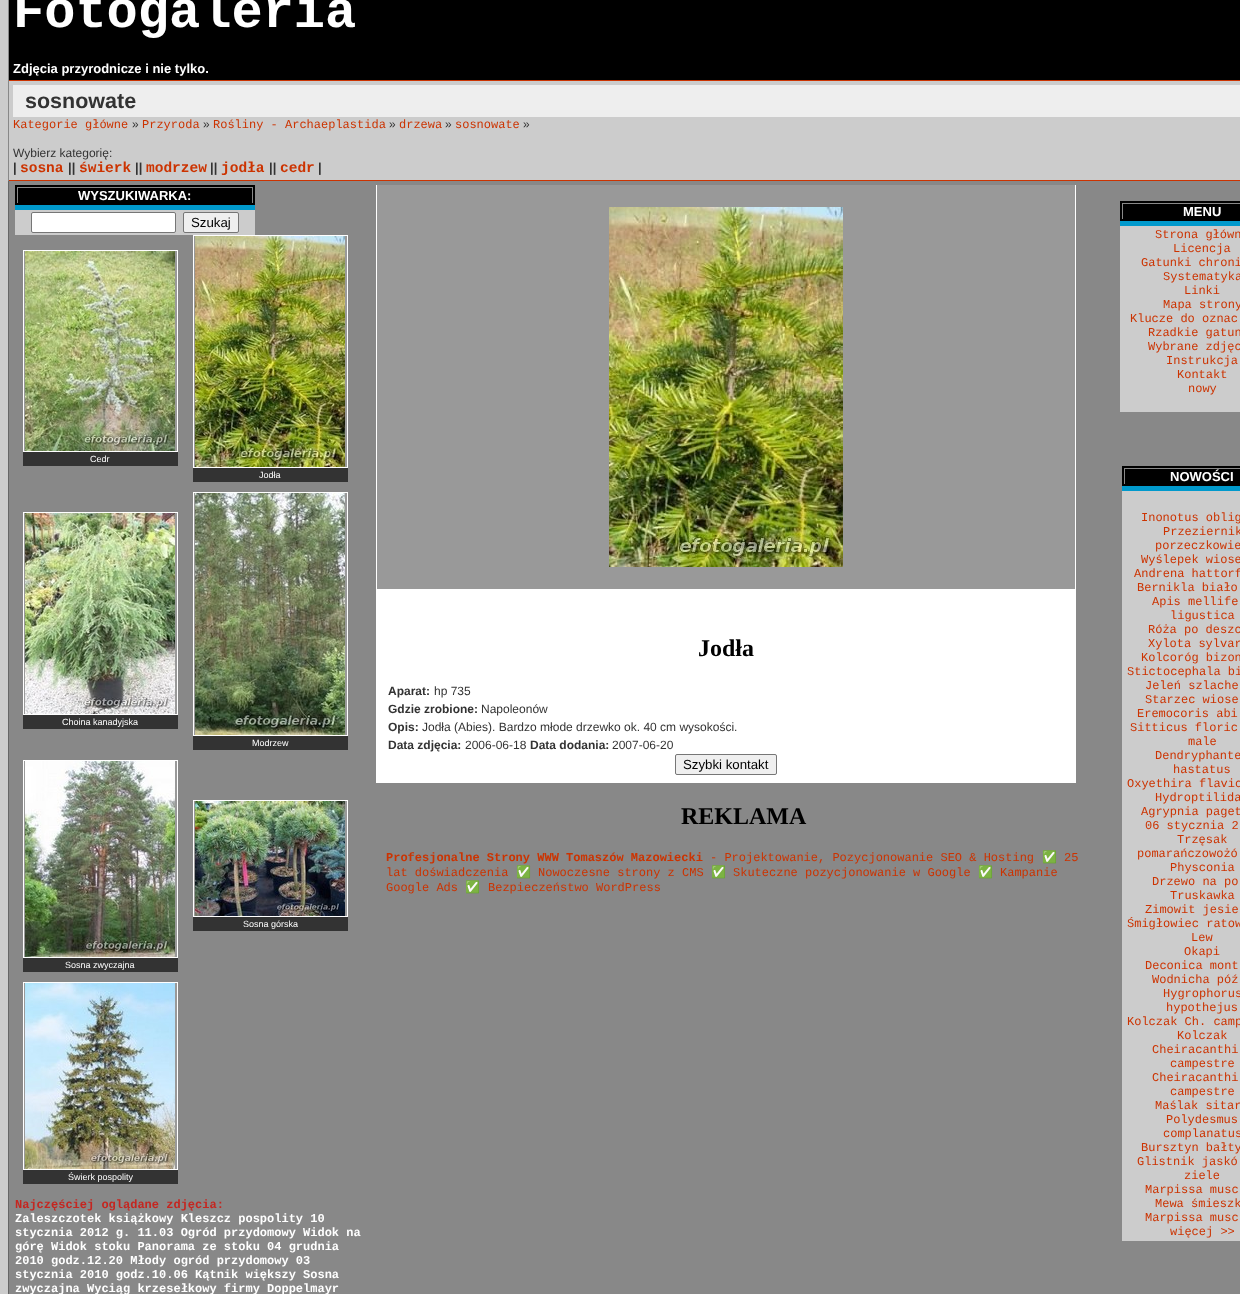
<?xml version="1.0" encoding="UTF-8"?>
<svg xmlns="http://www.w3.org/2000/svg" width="1240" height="1294">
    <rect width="100%" height="100%" fill="#CCCCCC"/>
    <rect x="9" y="0" width="1231" height="80" fill="#000000"/>
    <rect x="8" y="0" width="1" height="80" fill="#888888"/>
    <text x="13" y="27" font-family="Liberation Mono" font-size="52" font-weight="700" fill="#FFFFFF">Fotogaleria</text>
    <text x="13" y="73" font-family="Liberation Sans" font-size="13" font-weight="700" fill="#FFFFFF">Zdjęcia przyrodnicze i nie tylko.</text>
    <rect x="8" y="80" width="1232" height="1" fill="#CC3300"/>
    <rect x="8" y="180" width="1232" height="1" fill="#CC3300"/>
    <rect x="8" y="80" width="1" height="101" fill="#888888"/>
    <rect x="13" y="85" width="1227" height="32" fill="#EEEEEE"/>
    <text x="25" y="108" font-family="Liberation Sans" font-size="21.5" font-weight="700" fill="#333333">sosnowate</text>
    <text x="13" y="128" font-family="Liberation Mono" font-size="12" fill="#CC3300">Kategorie główne</text>
    <text x="132" y="128" font-family="Liberation Sans" font-size="12" fill="#333333">»</text>
    <text x="142" y="128" font-family="Liberation Mono" font-size="12" fill="#CC3300">Przyroda</text>
    <text x="203" y="128" font-family="Liberation Sans" font-size="12" fill="#333333">»</text>
    <text x="213" y="128" font-family="Liberation Mono" font-size="12" fill="#CC3300">Rośliny - Archaeplastida</text>
    <text x="389" y="128" font-family="Liberation Sans" font-size="12" fill="#333333">»</text>
    <text x="399" y="128" font-family="Liberation Mono" font-size="12" fill="#CC3300">drzewa</text>
    <text x="445" y="128" font-family="Liberation Sans" font-size="12" fill="#333333">»</text>
    <text x="455" y="128" font-family="Liberation Mono" font-size="12" fill="#CC3300">sosnowate</text>
    <text x="523" y="128" font-family="Liberation Sans" font-size="12" fill="#333333">»</text>
    <text x="13" y="157" font-family="Liberation Sans" font-size="12" fill="#333333">Wybierz kategorię:</text>
    <text x="13" y="172" font-family="Liberation Sans" font-size="13" font-weight="700" fill="#333333">|</text>
    <text x="20" y="172" font-family="Liberation Mono" font-size="14.5" font-weight="700" fill="#CC3300">sosna</text>
    <text x="68" y="172" font-family="Liberation Sans" font-size="13" font-weight="700" fill="#333333">||</text>
    <text x="79" y="172" font-family="Liberation Mono" font-size="14.5" font-weight="700" fill="#CC3300">świerk</text>
    <text x="135" y="172" font-family="Liberation Sans" font-size="13" font-weight="700" fill="#333333">||</text>
    <text x="146" y="172" font-family="Liberation Mono" font-size="14.5" font-weight="700" fill="#CC3300">modrzew</text>
    <text x="210" y="172" font-family="Liberation Sans" font-size="13" font-weight="700" fill="#333333">||</text>
    <text x="221" y="172" font-family="Liberation Mono" font-size="14.5" font-weight="700" fill="#CC3300">jodła</text>
    <text x="269" y="172" font-family="Liberation Sans" font-size="13" font-weight="700" fill="#333333">||</text>
    <text x="280" y="172" font-family="Liberation Mono" font-size="14.5" font-weight="700" fill="#CC3300">cedr</text>
    <text x="318" y="172" font-family="Liberation Sans" font-size="13" font-weight="700" fill="#333333">|</text>
    <rect x="9" y="181" width="1231" height="1113" fill="#888888"/>
    <rect x="8" y="181" width="1" height="1113" fill="#666666"/>
    <rect x="15" y="185" width="240" height="20" fill="#000000"/>
    <rect x="17" y="187" width="236" height="1" fill="#888888"/>
    <rect x="252" y="187" width="1" height="16" fill="#888888"/>
    <rect x="17" y="187" width="1" height="16" fill="#888888"/>
    <text x="78" y="200" font-family="Liberation Sans" font-size="13" font-weight="700" fill="#FFFFFF">WYSZUKIWARKA:</text>
    <rect x="15" y="205" width="240" height="5" fill="#0099CC"/>
    <rect x="15" y="210" width="240" height="25" fill="#CCCCCC"/>
    <rect x="31.5" y="212.5" width="144" height="20" rx="1.5" fill="#FFFFFF" stroke="#767676"/>
    <rect x="183.5" y="212.5" width="55" height="20" rx="1.5" fill="#EFEFEF" stroke="#767676"/>
    <text x="191" y="227" font-family="Liberation Sans" font-size="13.25" fill="#000000">Szukaj</text>
    <rect x="23.5" y="250.5" width="154" height="201" fill="#999999" stroke="#FFFFFF"/>
    <image x="25" y="251" width="150" height="200" href="img_01.png"/>
    <rect x="23" y="452" width="155" height="14" fill="#333333"/>
    <text x="90" y="462" font-family="Liberation Sans" font-size="9" fill="#FFFFFF">Cedr</text>
    <rect x="193.5" y="235.5" width="154" height="232" fill="#999999" stroke="#FFFFFF"/>
    <image x="195" y="236" width="150" height="231" href="img_02.png"/>
    <rect x="193" y="468" width="155" height="14" fill="#333333"/>
    <text x="259" y="478" font-family="Liberation Sans" font-size="9" fill="#FFFFFF">Jodła</text>
    <rect x="23.5" y="512.5" width="154" height="202" fill="#999999" stroke="#FFFFFF"/>
    <image x="25" y="513" width="150" height="201" href="img_03.png"/>
    <rect x="23" y="715" width="155" height="14" fill="#333333"/>
    <text x="62" y="725" font-family="Liberation Sans" font-size="9" fill="#FFFFFF">Choina kanadyjska</text>
    <rect x="193.5" y="492.5" width="154" height="243" fill="#999999" stroke="#FFFFFF"/>
    <image x="195" y="493" width="150" height="242" href="img_04.png"/>
    <rect x="193" y="736" width="155" height="14" fill="#333333"/>
    <text x="252" y="746" font-family="Liberation Sans" font-size="9" fill="#FFFFFF">Modrzew</text>
    <rect x="193.5" y="800.5" width="154" height="116" fill="#999999" stroke="#FFFFFF"/>
    <image x="195" y="801" width="150" height="115" href="img_05.png"/>
    <rect x="193" y="917" width="155" height="14" fill="#333333"/>
    <text x="243" y="927" font-family="Liberation Sans" font-size="9" fill="#FFFFFF">Sosna górska</text>
    <rect x="23.5" y="760.5" width="154" height="197" fill="#999999" stroke="#FFFFFF"/>
    <image x="25" y="761" width="150" height="196" href="img_06.png"/>
    <rect x="23" y="958" width="155" height="14" fill="#333333"/>
    <text x="65" y="968" font-family="Liberation Sans" font-size="9" fill="#FFFFFF">Sosna zwyczajna</text>
    <rect x="23.5" y="982.5" width="154" height="187" fill="#999999" stroke="#FFFFFF"/>
    <image x="25" y="983" width="150" height="186" href="img_07.png"/>
    <rect x="23" y="1170" width="155" height="14" fill="#333333"/>
    <text x="68" y="1180" font-family="Liberation Sans" font-size="9" fill="#FFFFFF">Świerk pospolity</text>
    <text x="15" y="1208" font-family="Liberation Mono" font-size="12" font-weight="700" fill="#C52620">Najczęściej oglądane zdjęcia:</text>
    <text font-family="Liberation Mono" font-size="12" font-weight="700" fill="#FFFFFF">
        <tspan x="15" y="1222">Zaleszczotek książkowy Kleszcz pospolity 10</tspan>
        <tspan x="15" y="1236">stycznia 2012 g. 11.03 Ogród przydomowy Widok na</tspan>
        <tspan x="15" y="1250">górę Widok stoku Panorama ze stoku 04 grudnia</tspan>
        <tspan x="15" y="1264">2010 godz.12.20 Młody ogród przydomowy 03</tspan>
        <tspan x="15" y="1278">stycznia 2010 godz.10.06 Kątnik większy Sosna</tspan>
        <tspan x="15" y="1292">zwyczajna Wyciąg krzesełkowy firmy Doppelmayr</tspan>
    </text>
    <rect x="1075" y="185" width="1" height="598" fill="#FFFFFF"/>
    <rect x="376" y="185" width="1" height="598" fill="#FFFFFF"/>
    <rect x="377" y="185" width="698" height="404" fill="#999999"/>
    <image x="609" y="207" width="234" height="360" href="img_08.png"/>
    <rect x="377" y="589" width="698" height="194" fill="#FFFFFF"/>
    <text x="698" y="656" font-family="Liberation Serif" font-size="24" font-weight="700" fill="#000000">Jodła</text>
    <text x="388" y="695" font-family="Liberation Sans" font-size="12" font-weight="700" fill="#333333">Aparat:</text>
    <text x="434" y="695" font-family="Liberation Sans" font-size="12" fill="#333333">hp 735</text>
    <text x="388" y="713" font-family="Liberation Sans" font-size="12" font-weight="700" fill="#333333">Gdzie zrobione:</text>
    <text x="481" y="713" font-family="Liberation Sans" font-size="12" fill="#333333">Napoleonów</text>
    <text x="388" y="731" font-family="Liberation Sans" font-size="12" font-weight="700" fill="#333333">Opis:</text>
    <text x="422" y="731" font-family="Liberation Sans" font-size="12" fill="#333333">Jodła (Abies). Bardzo młode drzewko ok. 40 cm wysokości.</text>
    <text x="388" y="749" font-family="Liberation Sans" font-size="12" font-weight="700" fill="#333333">Data zdjęcia:</text>
    <text x="465" y="749" font-family="Liberation Sans" font-size="12" fill="#333333">2006-06-18</text>
    <text x="530" y="749" font-family="Liberation Sans" font-size="12" font-weight="700" fill="#333333">Data dodania:</text>
    <text x="612" y="749" font-family="Liberation Sans" font-size="12" fill="#333333">2007-06-20</text>
    <rect x="675.5" y="754.5" width="101" height="20" rx="1.5" fill="#EFEFEF" stroke="#767676"/>
    <text x="683" y="769" font-family="Liberation Sans" font-size="13.25" fill="#000000">Szybki kontakt</text>
    <text x="681" y="824" font-family="Liberation Serif" font-size="24" font-weight="700" fill="#000000">REKLAMA</text>
    <text x="386" y="861" font-family="Liberation Mono" font-size="12" font-weight="700" fill="#CC3300">Profesjonalne Strony WWW Tomaszów Mazowiecki</text>
    <text x="710" y="861" font-family="Liberation Mono" font-size="12" fill="#CC3300">- Projektowanie, Pozycjonowanie SEO &amp; Hosting</text>
    <text x="1042" y="861" font-family="Noto Color Emoji" font-size="12" fill="#CC3300">✅</text>
    <text x="1064" y="861" font-family="Liberation Mono" font-size="12" fill="#CC3300">25</text>
    <text x="386" y="876" font-family="Liberation Mono" font-size="12" fill="#CC3300">lat doświadczenia</text>
    <text x="516" y="876" font-family="Noto Color Emoji" font-size="12" fill="#CC3300">✅</text>
    <text x="538" y="876" font-family="Liberation Mono" font-size="12" fill="#CC3300">Nowoczesne strony z CMS</text>
    <text x="711" y="876" font-family="Noto Color Emoji" font-size="12" fill="#CC3300">✅</text>
    <text x="733" y="876" font-family="Liberation Mono" font-size="12" fill="#CC3300">Skuteczne pozycjonowanie w Google</text>
    <text x="978" y="876" font-family="Noto Color Emoji" font-size="12" fill="#CC3300">✅</text>
    <text x="1000" y="876" font-family="Liberation Mono" font-size="12" fill="#CC3300">Kampanie</text>
    <text x="386" y="891" font-family="Liberation Mono" font-size="12" fill="#CC3300">Google Ads</text>
    <text x="465" y="891" font-family="Noto Color Emoji" font-size="12" fill="#CC3300">✅</text>
    <text x="488" y="891" font-family="Liberation Mono" font-size="12" fill="#CC3300">Bezpieczeństwo WordPress</text>
    <rect x="1120" y="201" width="120" height="20" fill="#000000"/>
    <rect x="1122" y="203" width="118" height="1" fill="#888888"/>
    <rect x="1122" y="203" width="1" height="16" fill="#888888"/>
    <text x="1183" y="216" font-family="Liberation Sans" font-size="13" font-weight="700" fill="#FFFFFF">MENU</text>
    <rect x="1120" y="221" width="120" height="5" fill="#0099CC"/>
    <rect x="1120" y="226" width="120" height="186" fill="#CCCCCC"/>
    <text x="1155" y="238" font-family="Liberation Mono" font-size="12" fill="#CC3300">Strona główn</text>
    <text x="1173" y="252" font-family="Liberation Mono" font-size="12" fill="#CC3300">Licencja</text>
    <text x="1141" y="266" font-family="Liberation Mono" font-size="12" fill="#CC3300">Gatunki chroni</text>
    <text x="1163" y="280" font-family="Liberation Mono" font-size="12" fill="#CC3300">Systematyka</text>
    <text x="1184" y="294" font-family="Liberation Mono" font-size="12" fill="#CC3300">Linki</text>
    <text x="1163" y="308" font-family="Liberation Mono" font-size="12" fill="#CC3300">Mapa strony</text>
    <text x="1130" y="322" font-family="Liberation Mono" font-size="12" fill="#CC3300">Klucze do oznac</text>
    <text font-family="Liberation Mono" font-size="12" fill="#CC3300">
        <tspan x="1148" y="336">Rzadkie gatun</tspan>
        <tspan x="1148" y="350">Wybrane zdjęc</tspan>
    </text>
    <text x="1166" y="364" font-family="Liberation Mono" font-size="12" fill="#CC3300">Instrukcja</text>
    <text x="1177" y="378" font-family="Liberation Mono" font-size="12" fill="#CC3300">Kontakt</text>
    <text x="1188" y="392" font-family="Liberation Mono" font-size="12" fill="#CC3300">nowy</text>
    <rect x="1122" y="466" width="118" height="20" fill="#000000"/>
    <rect x="1124" y="468" width="116" height="1" fill="#888888"/>
    <rect x="1124" y="468" width="1" height="16" fill="#888888"/>
    <text x="1170" y="481" font-family="Liberation Sans" font-size="13" font-weight="700" fill="#FFFFFF">NOWOŚCI</text>
    <rect x="1122" y="486" width="118" height="5" fill="#0099CC"/>
    <rect x="1122" y="491" width="118" height="750" fill="#CCCCCC"/>
    <text x="1141" y="521" font-family="Liberation Mono" font-size="12" fill="#CC3300">Inonotus oblig</text>
    <text x="1163" y="535" font-family="Liberation Mono" font-size="12" fill="#CC3300">Przeziernik</text>
    <text x="1155" y="549" font-family="Liberation Mono" font-size="12" fill="#CC3300">porzeczkowie</text>
    <text x="1141" y="563" font-family="Liberation Mono" font-size="12" fill="#CC3300">Wyślepek wiose</text>
    <text x="1134" y="577" font-family="Liberation Mono" font-size="12" fill="#CC3300">Andrena hattorf</text>
    <text x="1137" y="591" font-family="Liberation Mono" font-size="12" fill="#CC3300">Bernikla biało</text>
    <text x="1152" y="605" font-family="Liberation Mono" font-size="12" fill="#CC3300">Apis mellife</text>
    <text x="1170" y="619" font-family="Liberation Mono" font-size="12" fill="#CC3300">ligustica</text>
    <text font-family="Liberation Mono" font-size="12" fill="#CC3300">
        <tspan x="1148" y="633">Róża po deszc</tspan>
        <tspan x="1148" y="647">Xylota sylvar</tspan>
    </text>
    <text x="1141" y="661" font-family="Liberation Mono" font-size="12" fill="#CC3300">Kolcoróg bizon</text>
    <text x="1127" y="675" font-family="Liberation Mono" font-size="12" fill="#CC3300">Stictocephala bi</text>
    <text font-family="Liberation Mono" font-size="12" fill="#CC3300">
        <tspan x="1145" y="689">Jeleń szlache</tspan>
        <tspan x="1145" y="703">Starzec wiose</tspan>
    </text>
    <text x="1137" y="717" font-family="Liberation Mono" font-size="12" fill="#CC3300">Eremocoris abi</text>
    <text x="1130" y="731" font-family="Liberation Mono" font-size="12" fill="#CC3300">Sitticus floric</text>
    <text x="1188" y="745" font-family="Liberation Mono" font-size="12" fill="#CC3300">male</text>
    <text x="1155" y="759" font-family="Liberation Mono" font-size="12" fill="#CC3300">Dendryphante</text>
    <text x="1173" y="773" font-family="Liberation Mono" font-size="12" fill="#CC3300">hastatus</text>
    <text x="1127" y="787" font-family="Liberation Mono" font-size="12" fill="#CC3300">Oxyethira flavic</text>
    <text x="1155" y="801" font-family="Liberation Mono" font-size="12" fill="#CC3300">Hydroptilida</text>
    <text x="1141" y="815" font-family="Liberation Mono" font-size="12" fill="#CC3300">Agrypnia paget</text>
    <text x="1145" y="829" font-family="Liberation Mono" font-size="12" fill="#CC3300">06 stycznia 2</text>
    <text x="1177" y="843" font-family="Liberation Mono" font-size="12" fill="#CC3300">Trzęsak</text>
    <text x="1137" y="857" font-family="Liberation Mono" font-size="12" fill="#CC3300">pomarańczowożó</text>
    <text x="1170" y="871" font-family="Liberation Mono" font-size="12" fill="#CC3300">Physconia</text>
    <text x="1152" y="885" font-family="Liberation Mono" font-size="12" fill="#CC3300">Drzewo na po</text>
    <text x="1170" y="899" font-family="Liberation Mono" font-size="12" fill="#CC3300">Truskawka</text>
    <text x="1145" y="913" font-family="Liberation Mono" font-size="12" fill="#CC3300">Zimowit jesie</text>
    <text x="1127" y="927" font-family="Liberation Mono" font-size="12" fill="#CC3300">Śmigłowiec ratow</text>
    <text x="1191" y="941" font-family="Liberation Mono" font-size="12" fill="#CC3300">Lew</text>
    <text x="1184" y="955" font-family="Liberation Mono" font-size="12" fill="#CC3300">Okapi</text>
    <text x="1145" y="969" font-family="Liberation Mono" font-size="12" fill="#CC3300">Deconica mont</text>
    <text x="1152" y="983" font-family="Liberation Mono" font-size="12" fill="#CC3300">Wodnicha póź</text>
    <text x="1163" y="997" font-family="Liberation Mono" font-size="12" fill="#CC3300">Hygrophorus</text>
    <text x="1166" y="1011" font-family="Liberation Mono" font-size="12" fill="#CC3300">hypothejus</text>
    <text x="1127" y="1025" font-family="Liberation Mono" font-size="12" fill="#CC3300">Kolczak Ch. camp</text>
    <text x="1177" y="1039" font-family="Liberation Mono" font-size="12" fill="#CC3300">Kolczak</text>
    <text x="1152" y="1053" font-family="Liberation Mono" font-size="12" fill="#CC3300">Cheiracanthi</text>
    <text x="1170" y="1067" font-family="Liberation Mono" font-size="12" fill="#CC3300">campestre</text>
    <text x="1152" y="1081" font-family="Liberation Mono" font-size="12" fill="#CC3300">Cheiracanthi</text>
    <text x="1170" y="1095" font-family="Liberation Mono" font-size="12" fill="#CC3300">campestre</text>
    <text x="1155" y="1109" font-family="Liberation Mono" font-size="12" fill="#CC3300">Maślak sitar</text>
    <text x="1166" y="1123" font-family="Liberation Mono" font-size="12" fill="#CC3300">Polydesmus</text>
    <text x="1163" y="1137" font-family="Liberation Mono" font-size="12" fill="#CC3300">complanatus</text>
    <text x="1141" y="1151" font-family="Liberation Mono" font-size="12" fill="#CC3300">Bursztyn bałty</text>
    <text x="1137" y="1165" font-family="Liberation Mono" font-size="12" fill="#CC3300">Glistnik jaskó</text>
    <text x="1184" y="1179" font-family="Liberation Mono" font-size="12" fill="#CC3300">ziele</text>
    <text x="1145" y="1193" font-family="Liberation Mono" font-size="12" fill="#CC3300">Marpissa musc</text>
    <text x="1155" y="1207" font-family="Liberation Mono" font-size="12" fill="#CC3300">Mewa śmieszk</text>
    <text x="1145" y="1221" font-family="Liberation Mono" font-size="12" fill="#CC3300">Marpissa musc</text>
    <text x="1170" y="1235" font-family="Liberation Mono" font-size="12" fill="#CC3300">więcej &gt;&gt;</text>
</svg>
